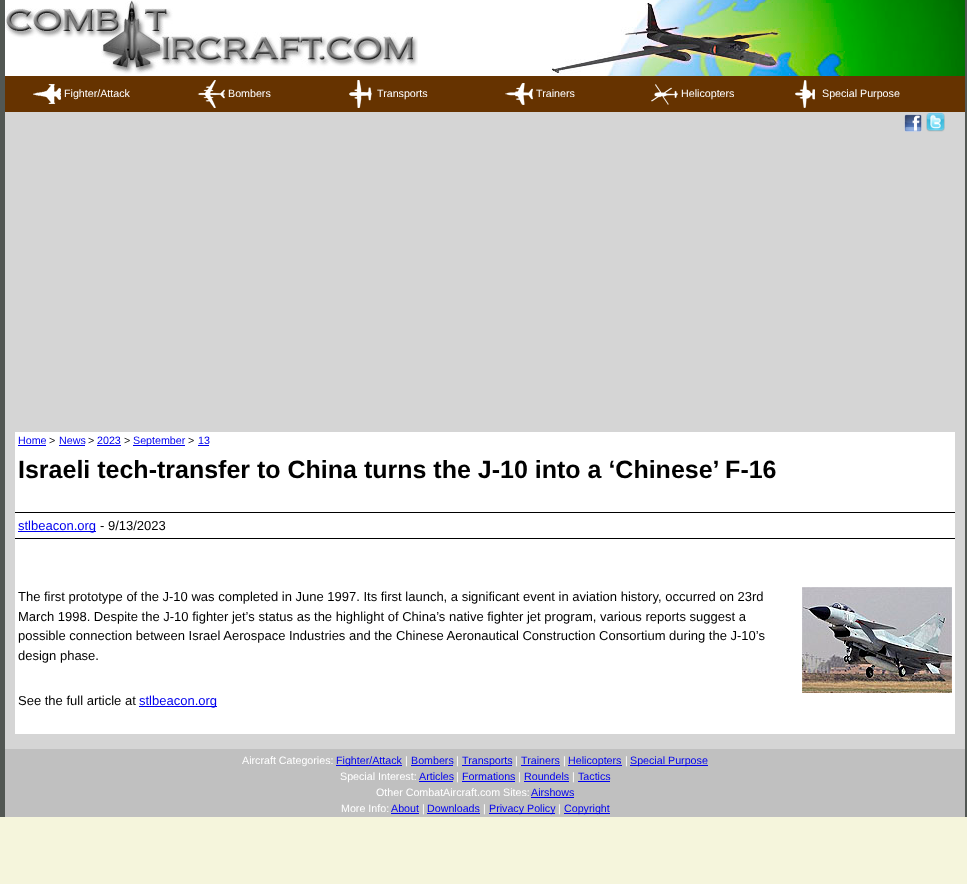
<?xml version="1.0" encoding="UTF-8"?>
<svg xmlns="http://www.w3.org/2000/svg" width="967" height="884">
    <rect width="100%" height="100%" fill="#F5F5DC"/>
    <rect x="5" y="112" width="960" height="637" fill="#D5D5D5"/>
    <rect x="965" y="0" width="2" height="817" fill="#525753"/>
    <rect x="0" y="0" width="5" height="817" fill="#525753"/>
    <rect x="5" y="0" width="545" height="76" fill="#FFFFFF"/>
    <image x="550" y="0" width="415" height="76" href="img_01.png"/>
    <image x="5" y="0" width="413" height="74" href="img_02.png"/>
    <rect x="5" y="76" width="960" height="36" fill="#663300"/>
    <image x="33" y="84" width="28" height="20" href="img_03.png"/>
    <text x="64" y="97" font-family="Liberation Sans" font-size="10.7" fill="#FFFFFF">Fighter/Attack</text>
    <image x="197" y="80" width="28" height="28" href="img_04.png"/>
    <text x="228" y="97" font-family="Liberation Sans" font-size="10.7" fill="#FFFFFF">Bombers</text>
    <image x="349" y="80" width="23" height="28" href="img_05.png"/>
    <text x="377" y="97" font-family="Liberation Sans" font-size="10.7" fill="#FFFFFF">Transports</text>
    <image x="505" y="83" width="28" height="22" href="img_06.png"/>
    <text x="536" y="97" font-family="Liberation Sans" font-size="10.7" fill="#FFFFFF">Trainers</text>
    <image x="651" y="84" width="27" height="21" href="img_07.png"/>
    <text x="681" y="97" font-family="Liberation Sans" font-size="10.7" fill="#FFFFFF">Helicopters</text>
    <image x="795" y="80" width="20" height="28" href="img_08.png"/>
    <text x="822" y="97" font-family="Liberation Sans" font-size="10.7" fill="#FFFFFF">Special Purpose</text>
    <image x="904" y="114" width="18" height="18" href="img_09.png"/>
    <image x="926" y="113" width="19" height="19" href="img_10.png"/>
    <rect x="15" y="432" width="940" height="302" fill="#FFFFFF"/>
    <text x="18" y="444" font-family="Liberation Sans" font-size="10.7" fill="#0000EE">Home</text>
    <rect x="18" y="445" width="28" height="1" fill="#0000EE"/>
    <text x="49" y="444" font-family="Liberation Sans" font-size="10.7" fill="#000000">&gt;</text>
    <text x="59" y="444" font-family="Liberation Sans" font-size="10.7" fill="#0000EE">News</text>
    <rect x="59" y="445" width="26" height="1" fill="#0000EE"/>
    <text x="88" y="444" font-family="Liberation Sans" font-size="10.7" fill="#000000">&gt;</text>
    <text x="97" y="444" font-family="Liberation Sans" font-size="10.7" fill="#0000EE">2023</text>
    <rect x="97" y="445" width="24" height="1" fill="#0000EE"/>
    <text x="124" y="444" font-family="Liberation Sans" font-size="10.7" fill="#000000">&gt;</text>
    <rect x="133" y="445" width="52" height="1" fill="#0000EE"/>
    <text x="133" y="444" font-family="Liberation Sans" font-size="10.7" fill="#0000EE">September</text>
    <text x="188" y="444" font-family="Liberation Sans" font-size="10.7" fill="#000000">&gt;</text>
    <text x="198" y="444" font-family="Liberation Sans" font-size="10.7" fill="#0000EE">13</text>
    <rect x="198" y="445" width="11" height="1" fill="#0000EE"/>
    <text x="18" y="478" font-family="Liberation Sans" font-size="25" font-weight="700" fill="#000000">Israeli tech-transfer to China turns the J-10 into a ‘Chinese’ F-16</text>
    <rect x="15" y="512" width="940" height="1" fill="#000000"/>
    <rect x="15" y="538" width="940" height="1" fill="#000000"/>
    <rect x="18" y="531" width="78" height="1" fill="#0000EE"/>
    <text x="18" y="530" font-family="Liberation Sans" font-size="13" fill="#0000EE">stlbeacon.org</text>
    <text x="100" y="530" font-family="Liberation Sans" font-size="13" fill="#000000">- 9/13/2023</text>
    <text x="18" y="601" font-family="Liberation Sans" font-size="13" fill="#000000">The first prototype of the J-10 was completed in June 1997. Its first launch, a significant event in aviation history, occurred on 23rd</text>
    <image x="802" y="587" width="150" height="106" href="img_11.png"/>
    <text font-family="Liberation Sans" font-size="13" fill="#000000">
        <tspan x="18" y="621">March 1998. Despite the J-10 fighter jet’s status as the highlight of China’s native fighter jet program, various reports suggest a</tspan>
        <tspan x="18" y="640">possible connection between Israel Aerospace Industries and the Chinese Aeronautical Construction Consortium during the J-10’s</tspan>
        <tspan x="18" y="660">design phase.</tspan>
    </text>
    <text x="18" y="705" font-family="Liberation Sans" font-size="13" fill="#000000">See the full article at</text>
    <rect x="139" y="706" width="78" height="1" fill="#0000EE"/>
    <text x="139" y="705" font-family="Liberation Sans" font-size="13" fill="#0000EE">stlbeacon.org</text>
    <rect x="5" y="749" width="960" height="68" fill="#C0C0C0"/>
    <text x="242" y="764" font-family="Liberation Sans" font-size="10.7" fill="#FFFFFF">Aircraft Categories:</text>
    <rect x="336" y="765" width="66" height="1" fill="#0000EE"/>
    <text x="336" y="764" font-family="Liberation Sans" font-size="10.7" fill="#0000EE">Fighter/Attack</text>
    <text x="405" y="764" font-family="Liberation Sans" font-size="10.7" fill="#FFFFFF">|</text>
    <text x="411" y="764" font-family="Liberation Sans" font-size="10.7" fill="#0000EE">Bombers</text>
    <rect x="411" y="765" width="42" height="1" fill="#0000EE"/>
    <text x="456" y="764" font-family="Liberation Sans" font-size="10.7" fill="#FFFFFF">|</text>
    <rect x="462" y="765" width="50" height="1" fill="#0000EE"/>
    <text x="462" y="764" font-family="Liberation Sans" font-size="10.7" fill="#0000EE">Transports</text>
    <text x="515" y="764" font-family="Liberation Sans" font-size="10.7" fill="#FFFFFF">|</text>
    <text x="521" y="764" font-family="Liberation Sans" font-size="10.7" fill="#0000EE">Trainers</text>
    <rect x="521" y="765" width="39" height="1" fill="#0000EE"/>
    <text x="563" y="764" font-family="Liberation Sans" font-size="10.7" fill="#FFFFFF">|</text>
    <rect x="568" y="765" width="54" height="1" fill="#0000EE"/>
    <text x="568" y="764" font-family="Liberation Sans" font-size="10.7" fill="#0000EE">Helicopters</text>
    <text x="625" y="764" font-family="Liberation Sans" font-size="10.7" fill="#FFFFFF">|</text>
    <rect x="630" y="765" width="78" height="1" fill="#0000EE"/>
    <text x="630" y="764" font-family="Liberation Sans" font-size="10.7" fill="#0000EE">Special Purpose</text>
    <text x="340" y="780" font-family="Liberation Sans" font-size="10.7" fill="#FFFFFF">Special Interest:</text>
    <text x="419" y="780" font-family="Liberation Sans" font-size="10.7" fill="#0000EE">Articles</text>
    <rect x="419" y="781" width="34" height="1" fill="#0000EE"/>
    <text x="456" y="780" font-family="Liberation Sans" font-size="10.7" fill="#FFFFFF">|</text>
    <text x="462" y="780" font-family="Liberation Sans" font-size="10.7" fill="#0000EE">Formations</text>
    <rect x="462" y="781" width="53" height="1" fill="#0000EE"/>
    <text x="518" y="780" font-family="Liberation Sans" font-size="10.7" fill="#FFFFFF">|</text>
    <text x="524" y="780" font-family="Liberation Sans" font-size="10.7" fill="#0000EE">Roundels</text>
    <rect x="524" y="781" width="45" height="1" fill="#0000EE"/>
    <text x="572" y="780" font-family="Liberation Sans" font-size="10.7" fill="#FFFFFF">|</text>
    <text x="578" y="780" font-family="Liberation Sans" font-size="10.7" fill="#0000EE">Tactics</text>
    <rect x="578" y="781" width="32" height="1" fill="#0000EE"/>
    <text x="376" y="796" font-family="Liberation Sans" font-size="10.7" fill="#FFFFFF">Other CombatAircraft.com Sites:</text>
    <text x="531" y="796" font-family="Liberation Sans" font-size="10.7" fill="#0000EE">Airshows</text>
    <rect x="531" y="797" width="43" height="1" fill="#0000EE"/>
    <text x="341" y="812" font-family="Liberation Sans" font-size="10.7" fill="#FFFFFF">More Info:</text>
    <text x="391" y="812" font-family="Liberation Sans" font-size="10.7" fill="#0000EE">About</text>
    <rect x="391" y="813" width="28" height="1" fill="#0000EE"/>
    <text x="422" y="812" font-family="Liberation Sans" font-size="10.7" fill="#FFFFFF">|</text>
    <text x="427" y="812" font-family="Liberation Sans" font-size="10.7" fill="#0000EE">Downloads</text>
    <rect x="427" y="813" width="53" height="1" fill="#0000EE"/>
    <text x="483" y="812" font-family="Liberation Sans" font-size="10.7" fill="#FFFFFF">|</text>
    <rect x="489" y="813" width="66" height="1" fill="#0000EE"/>
    <text x="489" y="812" font-family="Liberation Sans" font-size="10.7" fill="#0000EE">Privacy Policy</text>
    <text x="558" y="812" font-family="Liberation Sans" font-size="10.7" fill="#FFFFFF">|</text>
    <rect x="564" y="813" width="46" height="1" fill="#0000EE"/>
    <text x="564" y="812" font-family="Liberation Sans" font-size="10.7" fill="#0000EE">Copyright</text>
</svg>
